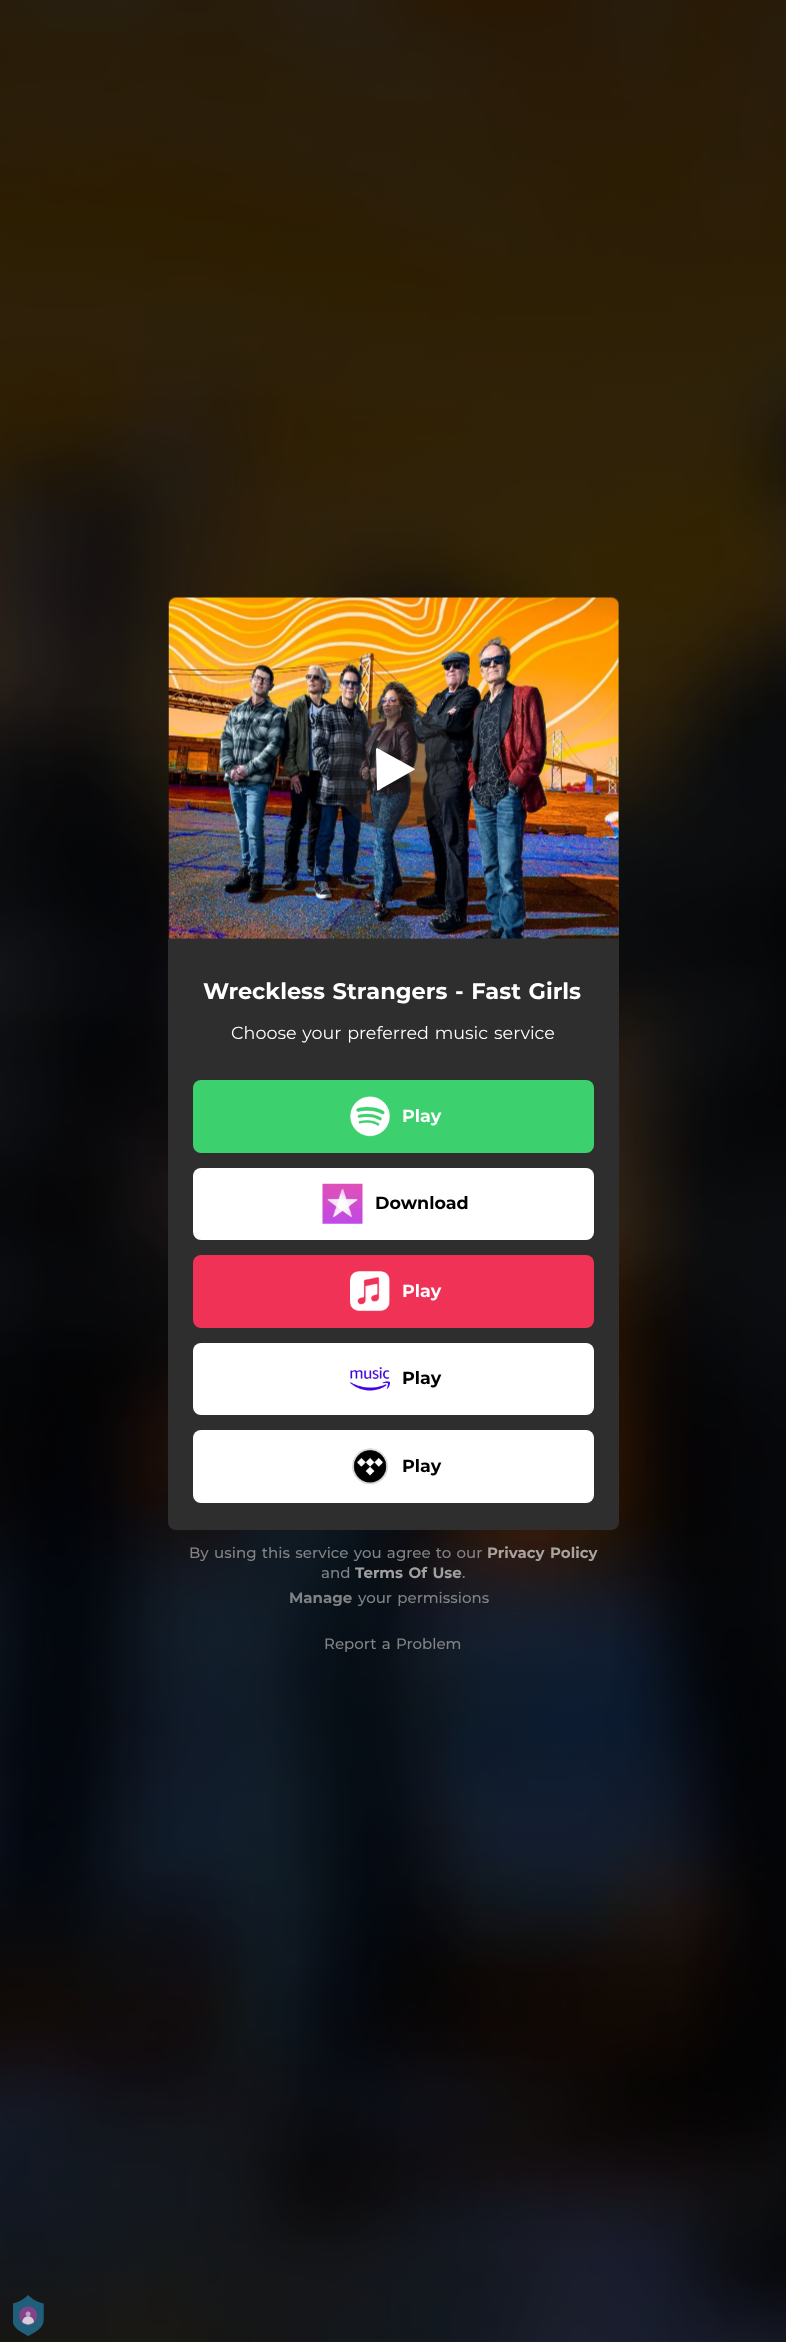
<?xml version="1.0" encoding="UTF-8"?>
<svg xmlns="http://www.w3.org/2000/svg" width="786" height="2342">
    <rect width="100%" height="100%" fill="#FFFFFF"/>
    <image x="0" y="0" width="786" height="2342" href="img_01.png"/>
    <path d="M 177 598 H 611 C 615.5 598 619 601.5 619 606 V 939 H 169 V 606 C 169 601.5 172.5 598 177 598 Z" fill="#2F2F2F"/>
    <image x="168" y="597" width="451" height="342" href="img_02.png"/>
    <circle cx="393.5" cy="767.5" r="62.5" fill="#282828" fill-opacity="0.5"/>
    <path d="M 414 770 L 384 787 C 383 787 378 792 377 790 L 376 749 L 377 748 L 408 765 L 415 769 L 414 770" fill="#FFFFFF"/>
    <path d="M 168 939 H 619 V 1522 C 619 1526.5 615.5 1530 611 1530 H 176 C 171.5 1530 168 1526.5 168 1522 Z" fill="#2E2E2E"/>
    <text x="203" y="999" word-spacing="1.25" font-family="Montserrat" font-size="22.5" font-weight="700" fill="#FFFFFF">Wreckless Strangers - Fast Girls</text>
    <text x="231" y="1039" word-spacing="1.25" font-family="Montserrat" font-size="17.5" fill="#FFFFFF">Choose your preferred music service</text>
    <rect x="193" y="1080" width="401" height="73" rx="8" fill="#3CD16E"/>
    <image x="350" y="1096" width="40" height="41" href="img_03.png"/>
    <text x="402" y="1122" font-family="Montserrat" font-size="17.5" font-weight="700" fill="#FFFFFF">Play</text>
    <rect x="193" y="1168" width="401" height="72" rx="8" fill="#FFFFFF"/>
    <image x="322" y="1183" width="41" height="41" href="img_04.png"/>
    <text x="375" y="1209" font-family="Montserrat" font-size="17.5" font-weight="700" fill="#000000">Download</text>
    <rect x="193" y="1255" width="401" height="73" rx="8" fill="#EF3256"/>
    <image x="350" y="1271" width="40" height="41" href="img_05.png"/>
    <text x="402" y="1297" font-family="Montserrat" font-size="17.5" font-weight="700" fill="#FFFFFF">Play</text>
    <rect x="193" y="1343" width="401" height="72" rx="8" fill="#FFFFFF"/>
    <image x="350" y="1367" width="40" height="24" href="img_06.png"/>
    <text x="402" y="1384" font-family="Montserrat" font-size="17.5" font-weight="700" fill="#000000">Play</text>
    <rect x="193" y="1430" width="401" height="73" rx="8" fill="#FFFFFF"/>
    <image x="352" y="1448" width="36" height="37" href="img_07.png"/>
    <text x="402" y="1472" font-family="Montserrat" font-size="17.5" font-weight="700" fill="#000000">Play</text>
    <text x="189" y="1558" word-spacing="1.25" font-family="Montserrat" font-size="15" font-weight="500" fill="#818385">By using this service you agree to our</text>
    <text x="487" y="1558" word-spacing="1.25" font-family="Montserrat" font-size="15" font-weight="700" fill="#A9A3A0">Privacy Policy</text>
    <text x="321" y="1578" font-family="Montserrat" font-size="15" font-weight="500" fill="#818385">and</text>
    <text x="355" y="1578" word-spacing="1.25" font-family="Montserrat" font-size="15" font-weight="700" fill="#A0A0A2">Terms Of Use</text>
    <text x="462" y="1578" font-family="Montserrat" font-size="15" font-weight="500" fill="#818385">.</text>
    <text x="289" y="1603" font-family="Montserrat" font-size="15" font-weight="700" fill="#818385">Manage</text>
    <text x="358" y="1603" word-spacing="1.25" font-family="Montserrat" font-size="15" font-weight="500" fill="#818385">your permissions</text>
    <text x="324" y="1649" word-spacing="1.25" font-family="Montserrat" font-size="15" font-weight="500" fill="#818385">Report a Problem</text>
    <image x="13" y="2295" width="31" height="41" href="img_08.png"/>
</svg>
